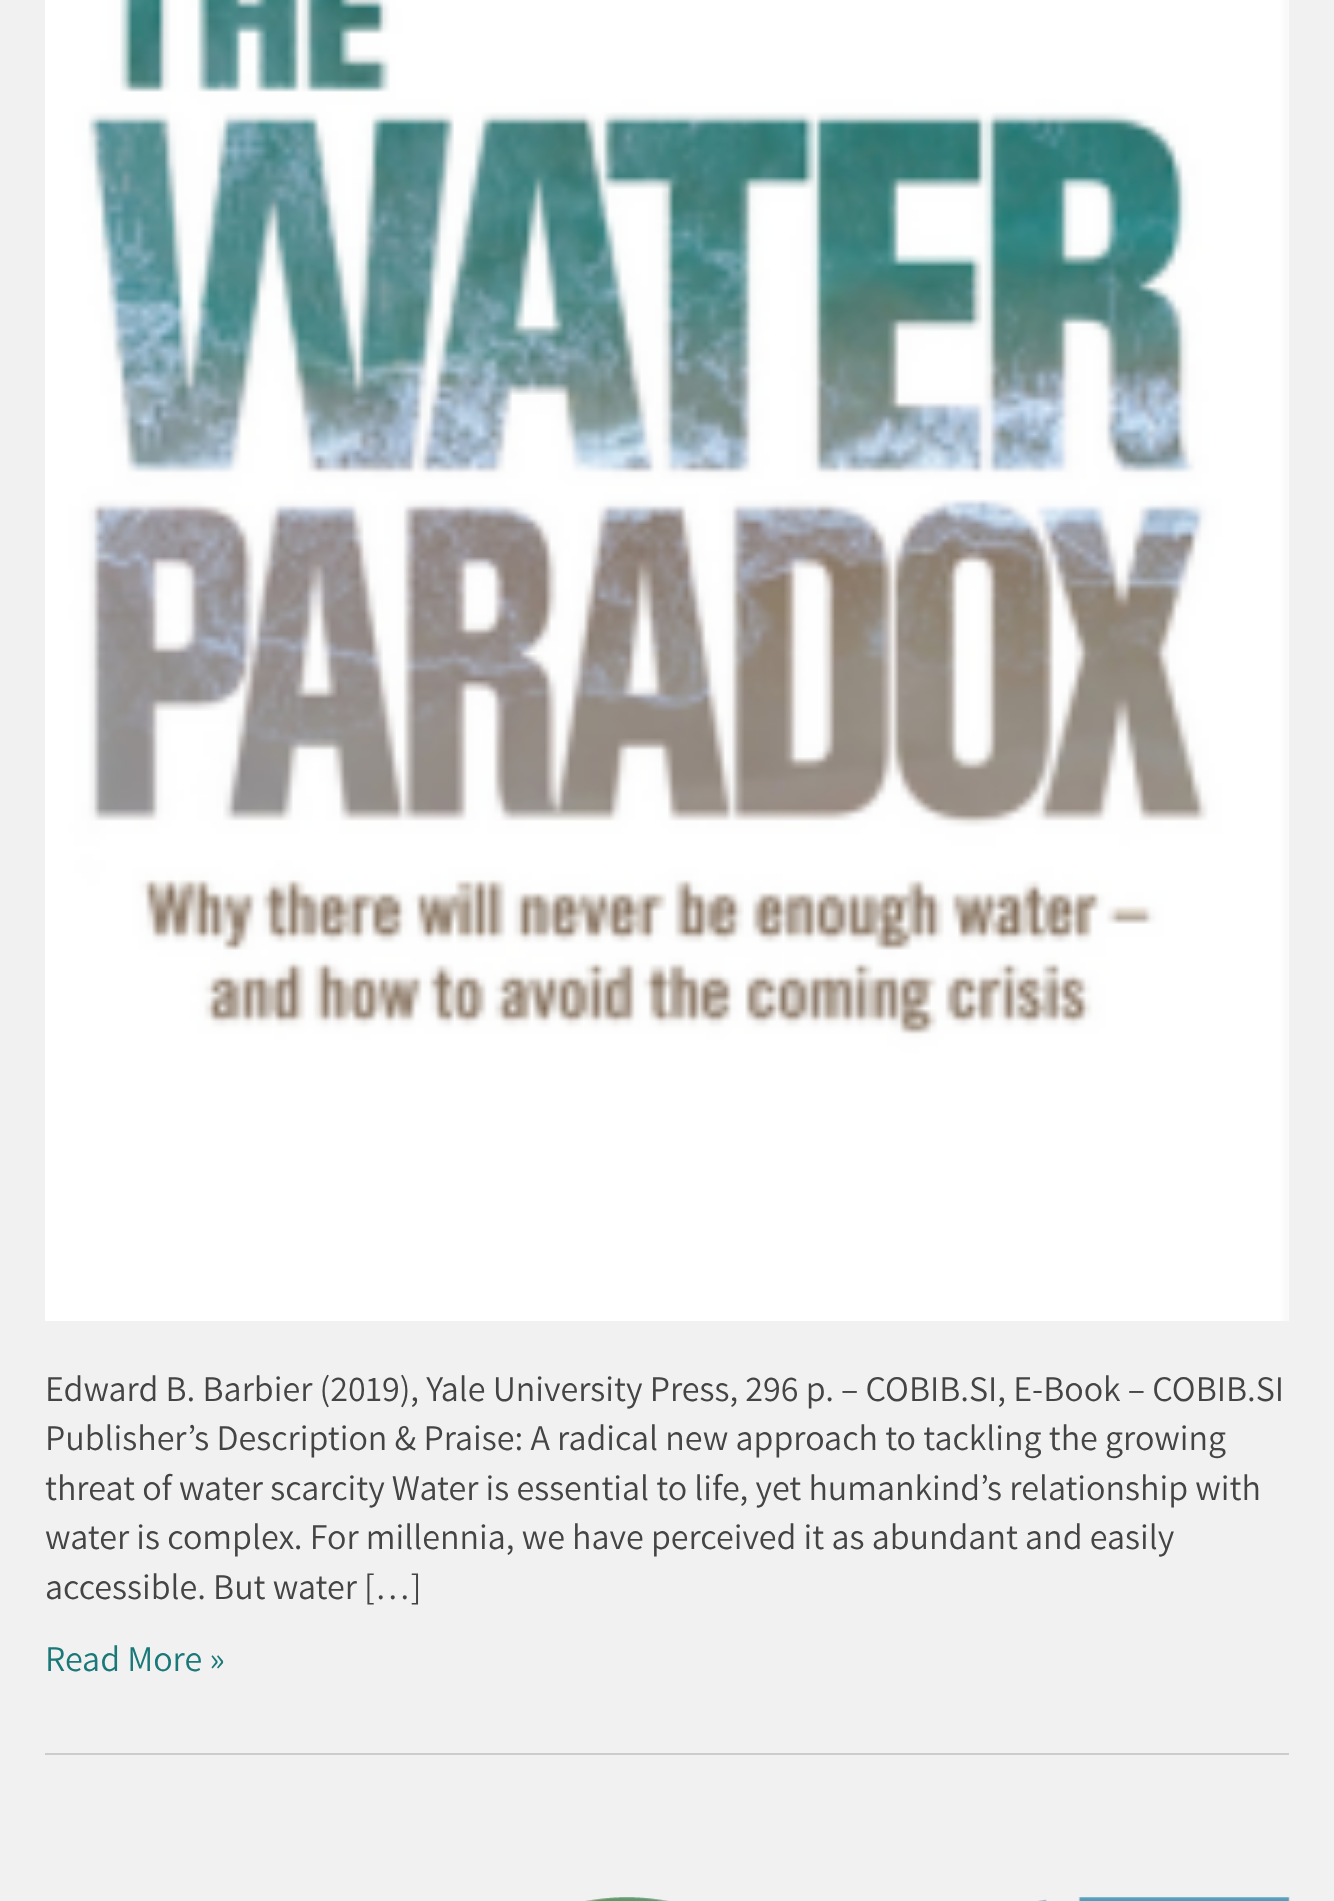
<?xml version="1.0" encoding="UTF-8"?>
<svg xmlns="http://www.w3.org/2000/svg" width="1334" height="1901">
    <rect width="100%" height="100%" fill="#F1F1F1"/>
    <rect x="45" y="1753" width="1244" height="2" fill="#CCCCCC"/>
    <image x="45" y="0" width="1244" height="1321" href="img_01.png"/>
    <text font-family="Assistant" font-size="36" fill="#444444">
        <tspan x="45" y="1401">Edward B. Barbier (2019), Yale University Press, 296 p. – COBIB.SI, E-Book – COBIB.SI</tspan>
        <tspan x="45" y="1450">Publisher’s Description &amp; Praise: A radical new approach to tackling the growing</tspan>
        <tspan x="45" y="1500">threat of water scarcity Water is essential to life, yet humankind’s relationship with</tspan>
        <tspan x="45" y="1549">water is complex. For millennia, we have perceived it as abundant and easily</tspan>
        <tspan x="45" y="1599">accessible. But water […]</tspan>
    </text>
    <text x="45" y="1671" font-family="Assistant" font-size="36" fill="#1A7878">Read More »</text>
    <image x="585" y="1897" width="705" height="4" href="img_02.png"/>
</svg>
